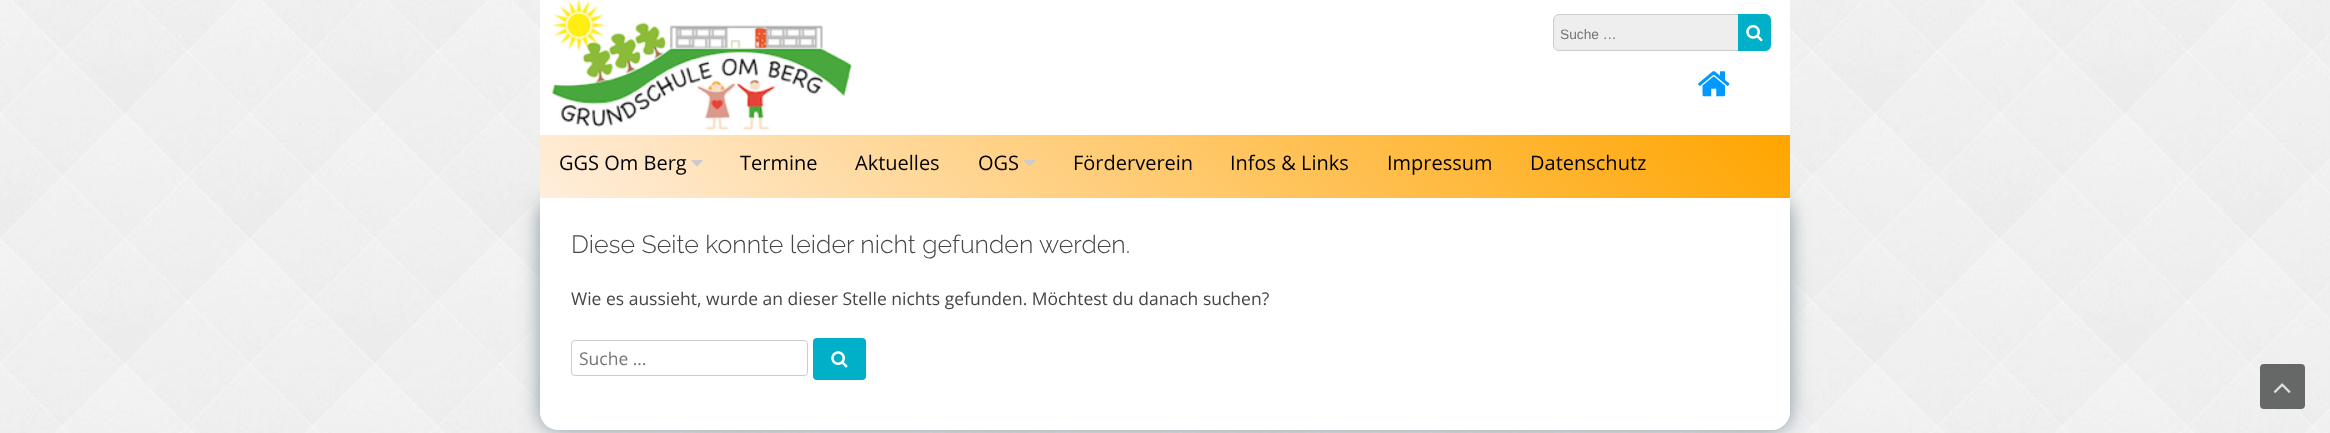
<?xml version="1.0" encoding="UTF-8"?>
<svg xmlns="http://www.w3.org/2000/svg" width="2330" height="433">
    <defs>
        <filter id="blur1" x="-50%" y="-200%" width="200%" height="500%"><feGaussianBlur stdDeviation="10"/></filter>
        <linearGradient id="g1" gradientUnits="userSpaceOnUse" x1="837" y1="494" x2="1493" y2="-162"><stop offset="0" stop-color="#FFEEDD"/><stop offset="1" stop-color="#FFA500"/></linearGradient>
    </defs>
    <rect width="100%" height="100%" fill="#FFFFFF"/>
    <image x="0" y="0" width="2330" height="433" href="img_01.png"/>
    <image x="540" y="0" width="1250" height="135" href="img_02.png"/>
    <path d="M 1559 14.5 H 1738.5 V 50.5 H 1559 C 1556 50.5 1553.5 48 1553.5 45 V 20 C 1553.5 17 1556 14.5 1559 14.5 Z" fill="#EEEEEE" stroke="#CCCCCC"/>
    <text x="1560" y="39" font-family="Liberation Sans" font-size="13.75" fill="#757575">Suche …</text>
    <path d="M 1738 14 H 1765 C 1768.5 14 1771 16.5 1771 20 V 45 C 1771 48.5 1768.5 51 1765 51 H 1738 Z" fill="#00B0C8"/>
    <image x="1746" y="25" width="17" height="17" href="img_03.png"/>
    <image x="1698" y="71" width="32" height="26" href="img_04.png"/>
    <rect x="540" y="198" width="1250" height="232" rx="19" fill="#85969F" filter="url(#blur1)"/>
    <rect x="540" y="135" width="1250" height="63" fill="url(#g1)"/>
    <text x="559" y="170" font-family="Open Sans" font-size="20" fill="#000000">GGS Om Berg</text>
    <image x="691" y="160" width="12" height="7" href="img_05.png"/>
    <text x="740" y="170" font-family="Open Sans" font-size="20" fill="#000000">Termine</text>
    <text x="855" y="170" font-family="Open Sans" font-size="20" fill="#000000">Aktuelles</text>
    <text x="978" y="170" font-family="Open Sans" font-size="20" fill="#000000">OGS</text>
    <image x="1023" y="160" width="13" height="7" href="img_06.png"/>
    <text x="1073" y="170" font-family="Open Sans" font-size="20" fill="#000000">Förderverein</text>
    <text x="1230" y="170" font-family="Open Sans" font-size="20" fill="#000000">Infos &amp; Links</text>
    <text x="1387" y="170" font-family="Open Sans" font-size="20" fill="#000000">Impressum</text>
    <text x="1530" y="170" font-family="Open Sans" font-size="20" fill="#000000">Datenschutz</text>
    <path d="M 540 198 H 1790 V 411 C 1790 421.5 1781.5 430 1771 430 H 559 C 548.5 430 540 421.5 540 411 Z" fill="#FFFFFF"/>
    <path d="M 540 198 H 1790 V 411 C 1790 422 1782 430 1771 430 H 559 C 548 430 540 422 540 411 Z M 552 198 H 1778 V 411 C 1778 415 1775 418 1771 418 H 559 C 555 418 552 415 552 411 Z" fill="#FFFFFF" fill-rule="evenodd"/>
    <text x="571" y="253" font-family="Raleway" font-size="25" font-weight="100" fill="#444545">Diese Seite konnte leider nicht gefunden werden.</text>
    <text x="571" y="305" font-family="Open Sans" font-size="17.5" fill="#444545">Wie es aussieht, wurde an dieser Stelle nichts gefunden. Möchtest du danach suchen?</text>
    <rect x="571.5" y="340.5" width="236" height="35" rx="3.5" fill="none" stroke="#CCCCCC"/>
    <text x="579" y="365" font-family="Open Sans" font-size="17.5" fill="#757575">Suche …</text>
    <rect x="813" y="338" width="53" height="42" rx="4" fill="#00B0C8"/>
    <image x="831" y="351" width="17" height="17" href="img_07.png"/>
    <rect x="2260" y="364" width="45" height="45" rx="4" fill="#444545" fill-opacity="0.8"/>
    <image x="2273" y="383" width="18" height="10" href="img_08.png"/>
</svg>
